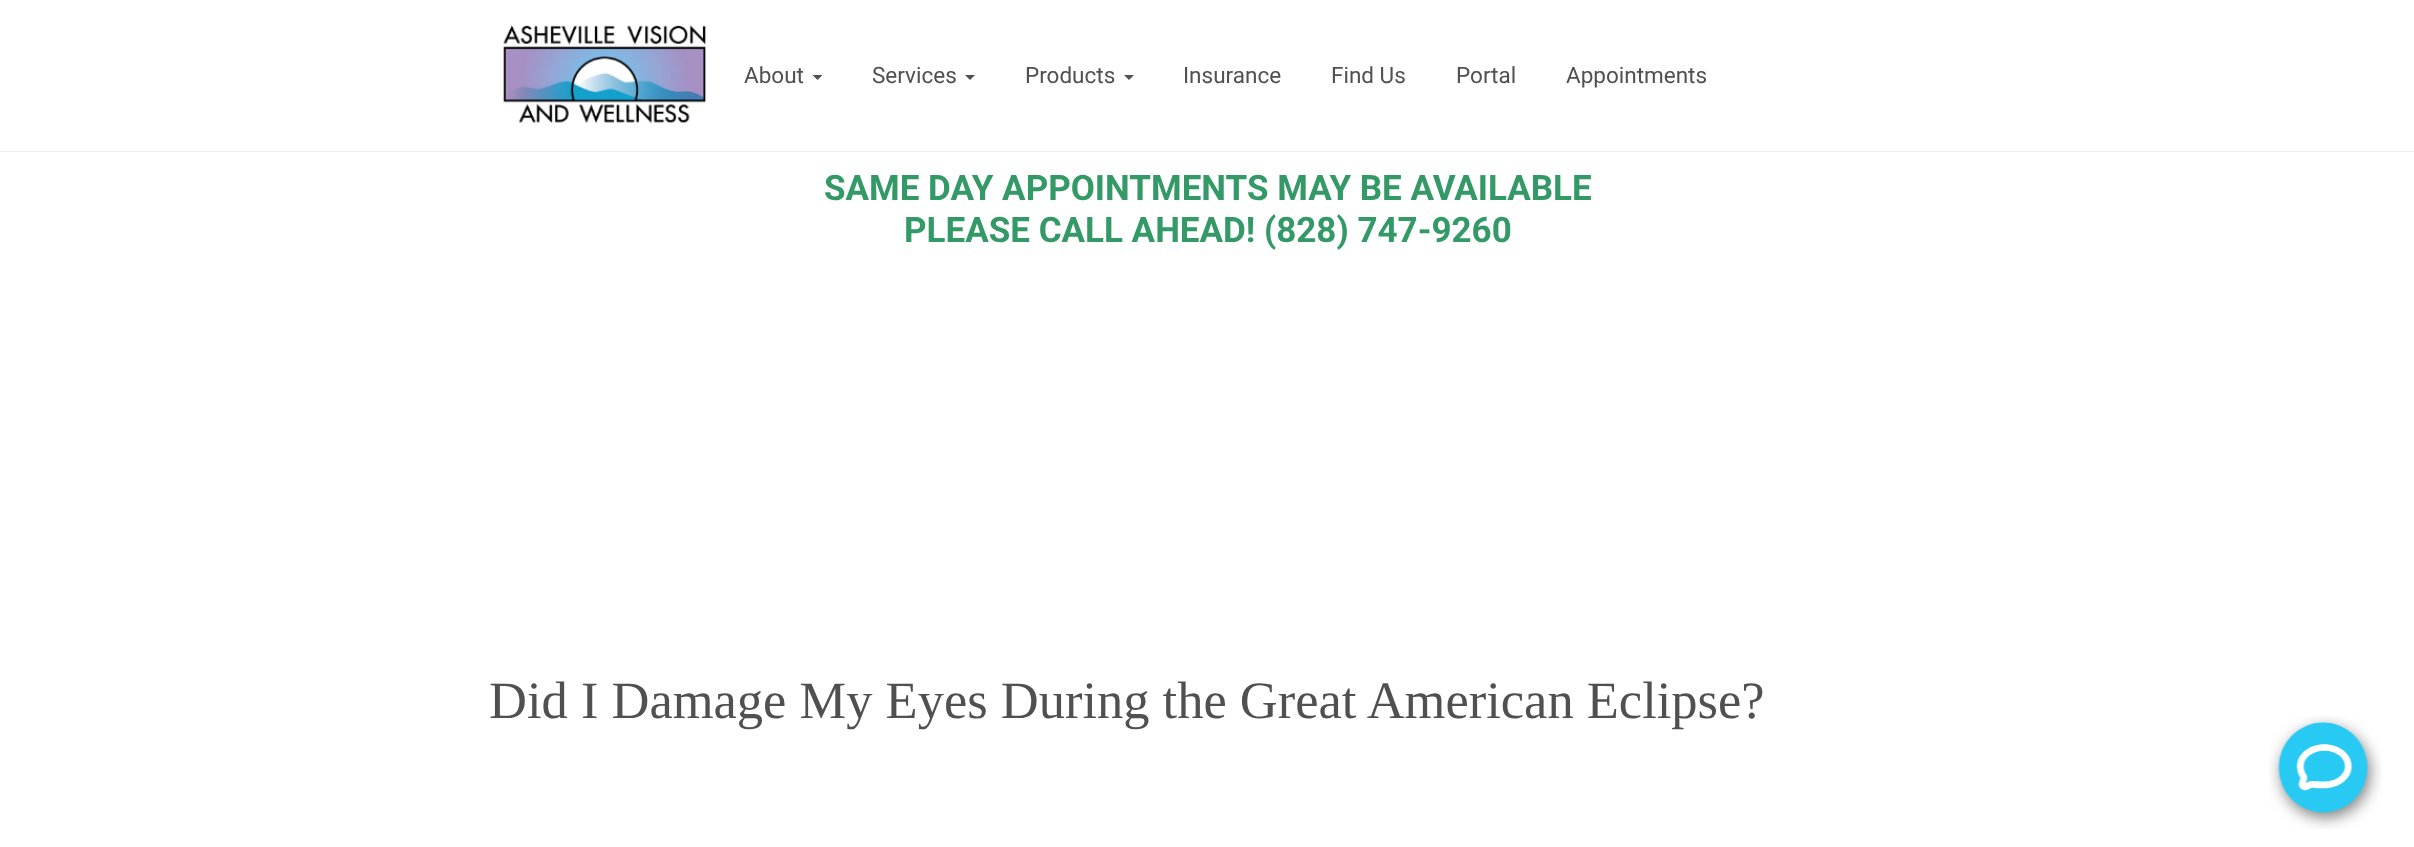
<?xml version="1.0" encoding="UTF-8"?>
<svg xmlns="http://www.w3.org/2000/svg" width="2414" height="847">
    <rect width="100%" height="100%" fill="#FFFFFF"/>
    <rect x="0" y="151" width="2414" height="1" fill="#F2EFEA"/>
    <image x="503" y="25" width="204" height="99" href="img_01.png"/>
    <text x="744" y="83" font-family="Roboto" font-size="22.5" fill="#505050">About</text>
    <path d="M 812.5 75 H 822.5 L 817.5 80 Z" fill="#505050"/>
    <text x="872" y="83" font-family="Roboto" font-size="22.5" fill="#505050">Services</text>
    <path d="M 965 75 H 975 L 970 80 Z" fill="#505050"/>
    <text x="1025" y="83" font-family="Roboto" font-size="22.5" fill="#505050">Products</text>
    <path d="M 1124 75 H 1134 L 1129 80 Z" fill="#505050"/>
    <text x="1183" y="83" font-family="Roboto" font-size="22.5" fill="#505050">Insurance</text>
    <text x="1331" y="83" font-family="Roboto" font-size="22.5" fill="#505050">Find Us</text>
    <text x="1456" y="83" font-family="Roboto" font-size="22.5" fill="#505050">Portal</text>
    <text x="1566" y="83" font-family="Roboto" font-size="22.5" fill="#505050">Appointments</text>
    <text x="824" y="200" font-family="Roboto" font-size="35" font-weight="700" fill="#339966">SAME DAY APPOINTMENTS MAY BE AVAILABLE</text>
    <text x="904" y="242" font-family="Roboto" font-size="35" font-weight="700" fill="#339966">PLEASE CALL AHEAD! (828) 747-9260</text>
    <text x="489" y="718" font-family="Liberation Serif" font-size="52.5" fill="#505050">Did I Damage My Eyes During the Great American Eclipse?</text>
    <image x="2269" y="716" width="113" height="113" href="img_02.png"/>
</svg>
